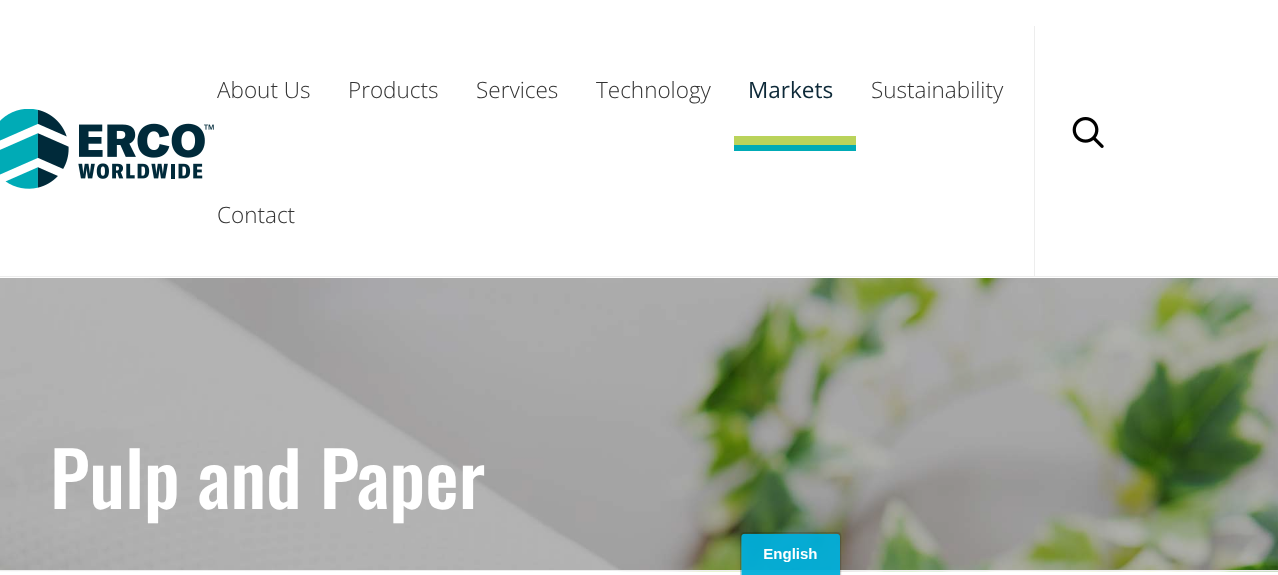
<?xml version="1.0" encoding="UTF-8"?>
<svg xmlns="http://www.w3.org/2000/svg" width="1278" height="575">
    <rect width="100%" height="100%" fill="#FFFFFF"/>
    <rect x="0" y="276" width="1278" height="1" fill="#EDEDED"/>
    <image x="0" y="109" width="214" height="80" href="img_01.png"/>
    <rect x="1034" y="26" width="1" height="250" fill="#EDEDED"/>
    <text x="217" y="98" font-family="Open Sans" font-size="22.5" font-weight="300" fill="#333333">About Us</text>
    <text x="348" y="98" font-family="Open Sans" font-size="22.5" font-weight="300" fill="#333333">Products</text>
    <text x="476" y="98" font-family="Open Sans" font-size="22.5" font-weight="300" fill="#333333">Services</text>
    <text x="596" y="98" font-family="Open Sans" font-size="22.5" font-weight="300" fill="#333333">Technology</text>
    <rect x="734" y="145" width="122" height="6" fill="#00ABB6"/>
    <text x="748" y="98" font-family="Open Sans" font-size="22.5" fill="#0D2938">Markets</text>
    <rect x="734" y="136" width="122" height="9" fill="#BAD35B"/>
    <text x="871" y="98" font-family="Open Sans" font-size="22.5" font-weight="300" fill="#333333">Sustainability</text>
    <text x="217" y="223" font-family="Open Sans" font-size="22.5" font-weight="300" fill="#333333">Contact</text>
    <image x="1072" y="117" width="32" height="31" href="img_02.png"/>
    <image x="0" y="278" width="1278" height="294" href="img_03.png"/>
    <rect x="0" y="570" width="1278" height="1" fill="#EDEDED"/>
    <text x="50" y="509" font-family="Oswald" font-size="75" font-weight="500" fill="#FFFFFF">Pulp and Paper</text>
    <image x="740" y="532" width="102" height="43" href="img_04.png"/>
</svg>
